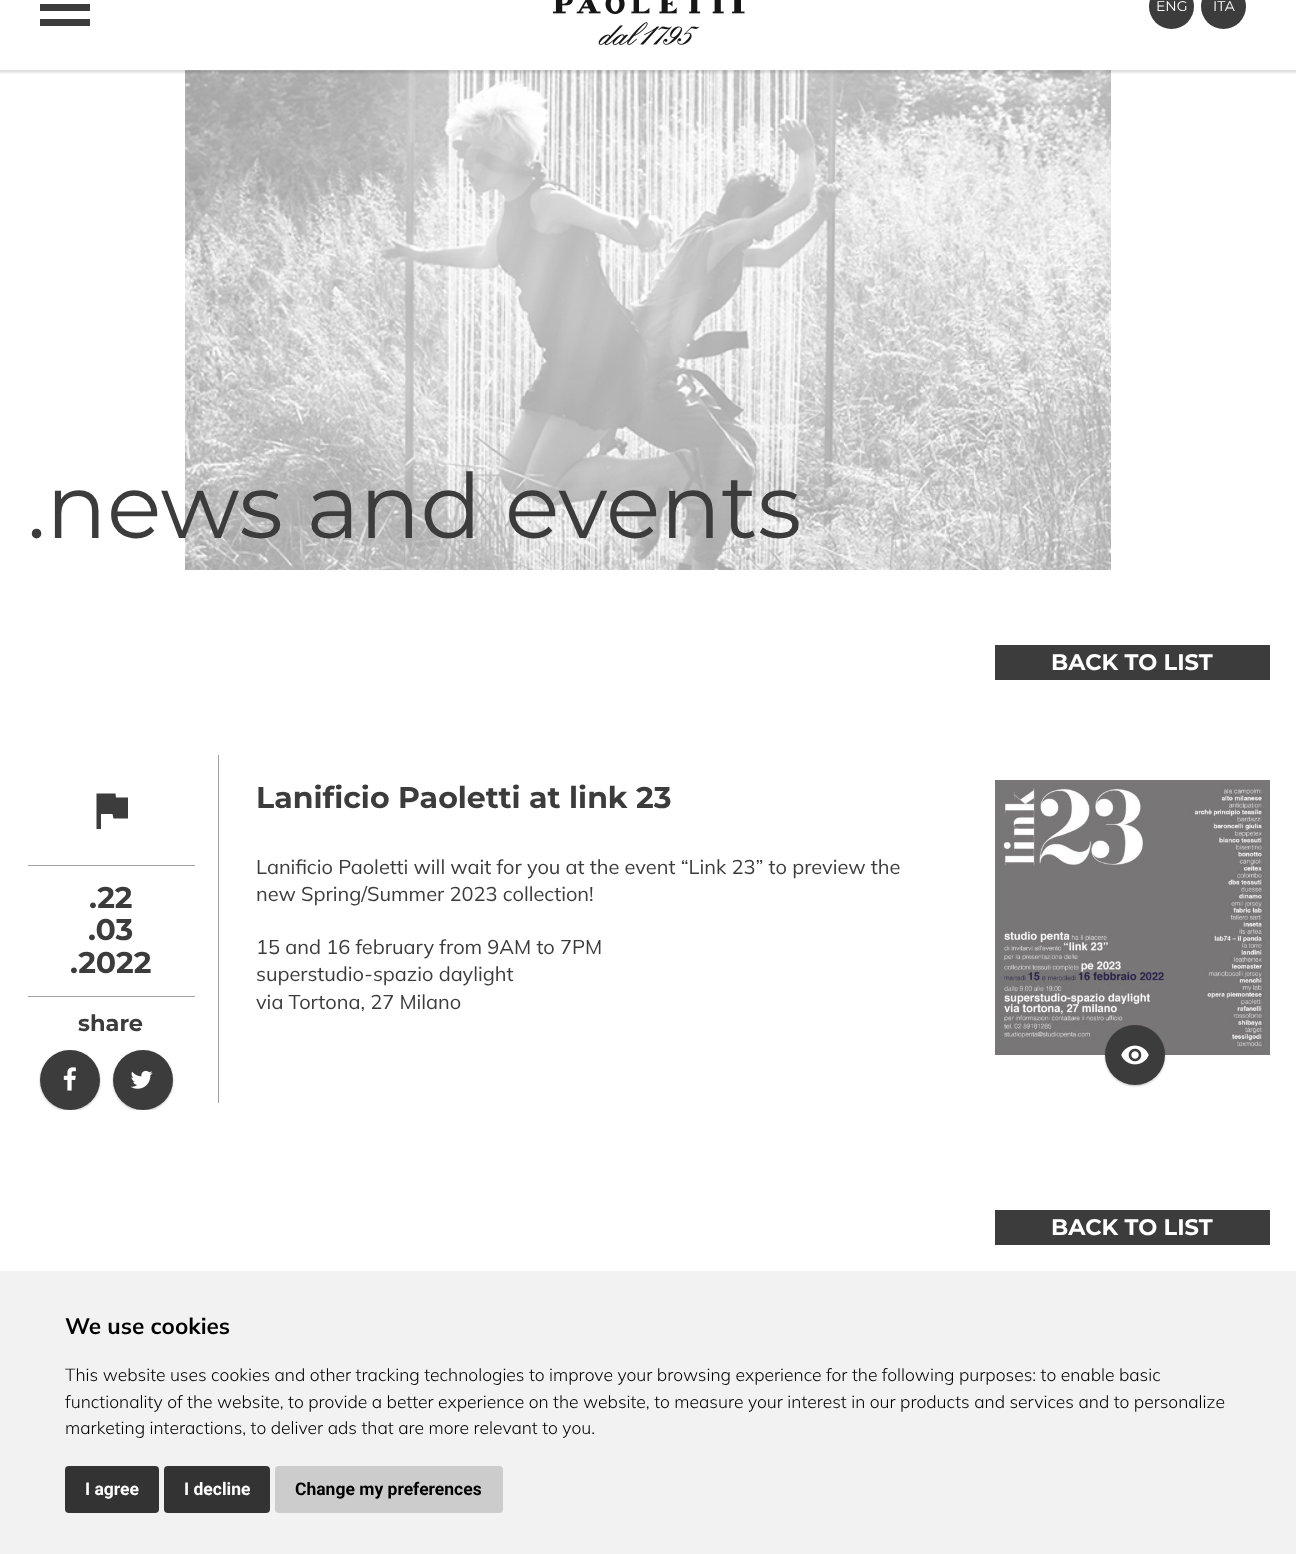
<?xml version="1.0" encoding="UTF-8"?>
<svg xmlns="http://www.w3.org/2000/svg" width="1296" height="1554">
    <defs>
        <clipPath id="clip1"><rect x="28" y="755" width="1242" height="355"/></clipPath>
        <filter id="blur1" x="-50%" y="-200%" width="200%" height="500%"><feGaussianBlur stdDeviation="1"/></filter>
    </defs>
    <rect width="100%" height="100%" fill="#FFFFFF"/>
    <image x="185" y="70" width="926" height="500" href="img_03.png"/>
    <image x="0" y="70" width="1296" height="4" href="img_01.png"/>
    <rect x="40" y="4" width="50" height="7" fill="#3C3C3C"/>
    <rect x="40" y="19" width="50" height="7" fill="#3C3C3C"/>
    <image x="553" y="0" width="192" height="45" href="img_02.png"/>
    <circle cx="1171.5" cy="6.5" r="22.5" fill="#3C3C3C"/>
    <text x="1156" y="11" font-family="Montserrat" font-size="14" fill="#FFFFFF">ENG</text>
    <circle cx="1223.5" cy="6.5" r="22.5" fill="#3C3C3C"/>
    <text x="1213" y="11" font-family="Montserrat" font-size="14" fill="#FFFFFF">ITA</text>
    <text x="27" y="538" font-family="Montserrat" font-size="90" fill="#3C3C3C">.news and events</text>
    <rect x="995" y="645" width="275" height="35" fill="#3C3C3C"/>
    <text x="1051" y="670" font-family="Montserrat" font-size="22.5" font-weight="700" fill="#FFFFFF">BACK TO LIST</text>
    <rect x="28" y="865" width="167" height="1" fill="#A1A1A1"/>
    <path d="M 116 797.5 H 128 V 818.5 H 113.5 L 112.5 814 H 101 V 829 H 96.5 V 793.5 H 115.5 Z" fill="#3C3C3C"/>
    <text x="89" y="908" font-family="Montserrat" font-size="30" font-weight="700" fill="#3C3C3C">.22</text>
    <text x="88" y="940" font-family="Montserrat" font-size="30" font-weight="700" fill="#3C3C3C">.03</text>
    <text x="70" y="973" font-family="Montserrat" font-size="30" font-weight="700" fill="#3C3C3C">.2022</text>
    <rect x="28" y="996" width="167" height="1" fill="#A1A1A1"/>
    <text x="78" y="1031" font-family="Montserrat" font-size="22.5" font-weight="700" fill="#3C3C3C">share</text>
    <g clip-path="url(#clip1)">
        <rect x="40" y="1051" width="60" height="60" rx="30" fill="#000000" fill-opacity="0.25" filter="url(#blur1)"/>
    </g>
    <circle cx="70" cy="1080" r="30" fill="#3C3C3C"/>
    <image x="63" y="1067" width="13" height="24" href="img_04.png"/>
    <g clip-path="url(#clip1)">
        <rect x="113" y="1051" width="60" height="60" rx="30" fill="#000000" fill-opacity="0.25" filter="url(#blur1)"/>
    </g>
    <circle cx="143" cy="1080" r="30" fill="#3C3C3C"/>
    <image x="130" y="1070" width="23" height="19" href="img_05.png"/>
    <rect x="218" y="755" width="1" height="348" fill="#A1A1A1"/>
    <text x="256" y="808" font-family="Montserrat" font-size="30" font-weight="700" fill="#3C3C3C">Lanificio Paoletti at link 23</text>
    <text font-family="Mulish" font-size="20" fill="#3C3C3C">
        <tspan x="256" y="874">Lanificio Paoletti will wait for you at the event “Link 23” to preview the</tspan>
        <tspan x="256" y="901">new Spring/Summer 2023 collection!</tspan>
    </text>
    <text font-family="Mulish" font-size="20" fill="#3C3C3C">
        <tspan x="256" y="954">15 and 16 february from 9AM to 7PM</tspan>
        <tspan x="256" y="981">superstudio-spazio daylight</tspan>
        <tspan x="256" y="1009">via Tortona, 27 Milano</tspan>
    </text>
    <image x="995" y="780" width="275" height="275" href="img_06.png"/>
    <rect x="1105" y="1026" width="60" height="60" rx="30" fill="#000000" fill-opacity="0.25" filter="url(#blur1)"/>
    <circle cx="1135" cy="1055" r="30" fill="#3C3C3C"/>
    <image x="1121" y="1045" width="28" height="20" href="img_07.png"/>
    <rect x="995" y="1210" width="275" height="35" fill="#3C3C3C"/>
    <text x="1051" y="1235" font-family="Montserrat" font-size="22.5" font-weight="700" fill="#FFFFFF">BACK TO LIST</text>
    <rect x="0" y="1271" width="1296" height="283" fill="#F2F2F2"/>
    <text x="65" y="1334" font-family="Mulish" font-size="22.5" font-weight="700" fill="#000000">We use cookies</text>
    <text font-family="Mulish" font-size="17.5" font-weight="300" fill="#000000">
        <tspan x="65" y="1381">This website uses cookies and other tracking technologies to improve your browsing experience for the following purposes: to enable basic</tspan>
        <tspan x="65" y="1408">functionality of the website, to provide a better experience on the website, to measure your interest in our products and services and to personalize</tspan>
        <tspan x="65" y="1434">marketing interactions, to deliver ads that are more relevant to you.</tspan>
    </text>
    <rect x="65" y="1466" width="94" height="47" rx="4" fill="#333333"/>
    <text x="85" y="1495" font-family="Roboto" font-size="17.5" font-weight="700" fill="#FFFFFF">I agree</text>
    <rect x="164" y="1466" width="106" height="47" rx="4" fill="#333333"/>
    <text x="184" y="1495" font-family="Roboto" font-size="17.5" font-weight="700" fill="#FFFFFF">I decline</text>
    <rect x="275" y="1466" width="228" height="47" rx="4" fill="#CCCCCC"/>
    <text x="295" y="1495" font-family="Roboto" font-size="17.5" font-weight="700" fill="#000000">Change my preferences</text>
</svg>
